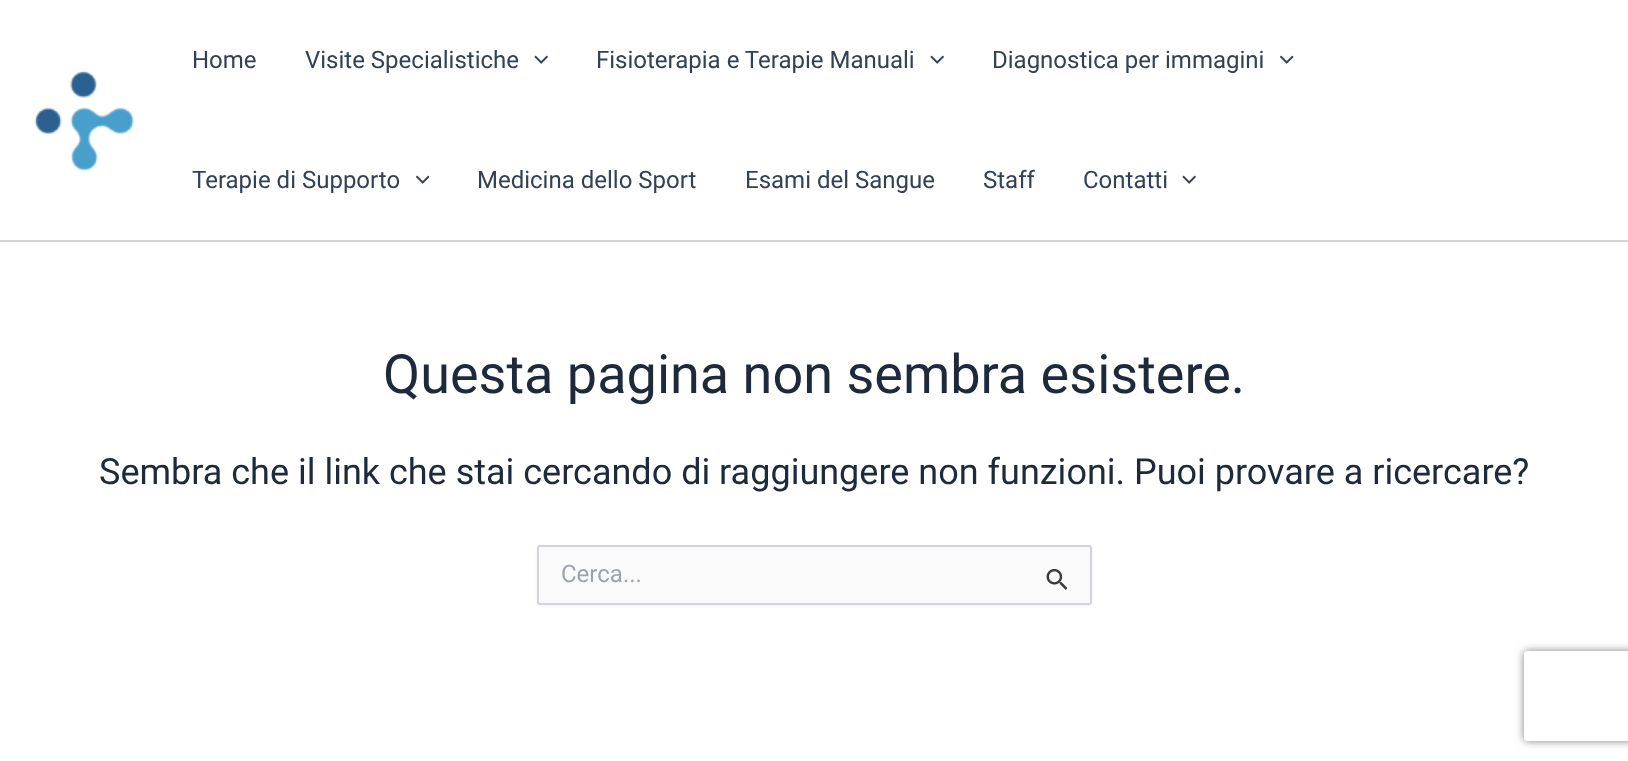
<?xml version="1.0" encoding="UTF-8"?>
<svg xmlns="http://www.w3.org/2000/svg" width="1628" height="761">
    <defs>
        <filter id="blur1" x="-50%" y="-200%" width="200%" height="500%"><feGaussianBlur stdDeviation="1.5"/></filter>
        <clipPath id="clip1"><path d="M 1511 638 H 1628 V 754 H 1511 Z M 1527 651 H 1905 C 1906.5 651 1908 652.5 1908 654 V 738 C 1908 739.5 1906.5 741 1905 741 H 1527 C 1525.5 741 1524 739.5 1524 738 V 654 C 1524 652.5 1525.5 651 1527 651 Z" clip-rule="evenodd"/></clipPath>
        <filter id="blur2" x="-50%" y="-200%" width="200%" height="500%"><feGaussianBlur stdDeviation="4"/></filter>
    </defs>
    <rect width="100%" height="100%" fill="#FFFFFF"/>
    <rect x="0" y="240" width="1628" height="2" fill="#D1D5DB"/>
    <image x="34" y="71" width="100" height="100" href="img_01.png"/>
    <text x="192" y="68" font-family="Roboto" font-size="24" fill="#334155">Home</text>
    <text x="305" y="68" font-family="Roboto" font-size="24" fill="#334155">Visite Specialistiche</text>
    <image x="534" y="55" width="14" height="9" href="img_02.png"/>
    <text x="596" y="68" font-family="Roboto" font-size="24" fill="#334155">Fisioterapia e Terapie Manuali</text>
    <image x="930" y="55" width="14" height="9" href="img_02.png"/>
    <text x="992" y="68" font-family="Roboto" font-size="24" fill="#334155">Diagnostica per immagini</text>
    <image x="1280" y="55" width="14" height="9" href="img_03.png"/>
    <text x="192" y="188" font-family="Roboto" font-size="24" fill="#334155">Terapie di Supporto</text>
    <image x="416" y="175" width="13" height="9" href="img_04.png"/>
    <text x="477" y="188" font-family="Roboto" font-size="24" fill="#334155">Medicina dello Sport</text>
    <text x="745" y="188" font-family="Roboto" font-size="24" fill="#334155">Esami del Sangue</text>
    <text x="983" y="188" font-family="Roboto" font-size="24" fill="#334155">Staff</text>
    <text x="1083" y="188" font-family="Roboto" font-size="24" fill="#334155">Contatti</text>
    <image x="1182" y="175" width="14" height="9" href="img_02.png"/>
    <text x="383" y="393" font-family="Roboto" font-size="54" fill="#1E293B">Questa pagina non sembra esistere.</text>
    <text x="99" y="484" font-family="Roboto" font-size="36" fill="#1E293B">Sembra che il link che stai cercando di raggiungere non funzioni. Puoi provare a ricercare?</text>
    <rect x="537" y="546" width="555" height="60" rx="3" fill="#000000" fill-opacity="0.05" filter="url(#blur1)"/>
    <rect x="538" y="546" width="553" height="58" rx="2" fill="#FAFAFA" stroke="#D1D5DB" stroke-width="2"/>
    <text x="561" y="582" font-family="Roboto" font-size="24" fill="#9CA3AF">Cerca...</text>
    <image x="1046" y="569" width="21" height="21" href="img_05.png"/>
    <g clip-path="url(#clip1)">
        <rect x="1524" y="651" width="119" height="90" rx="3" fill="#808080" filter="url(#blur2)"/>
    </g>
</svg>
